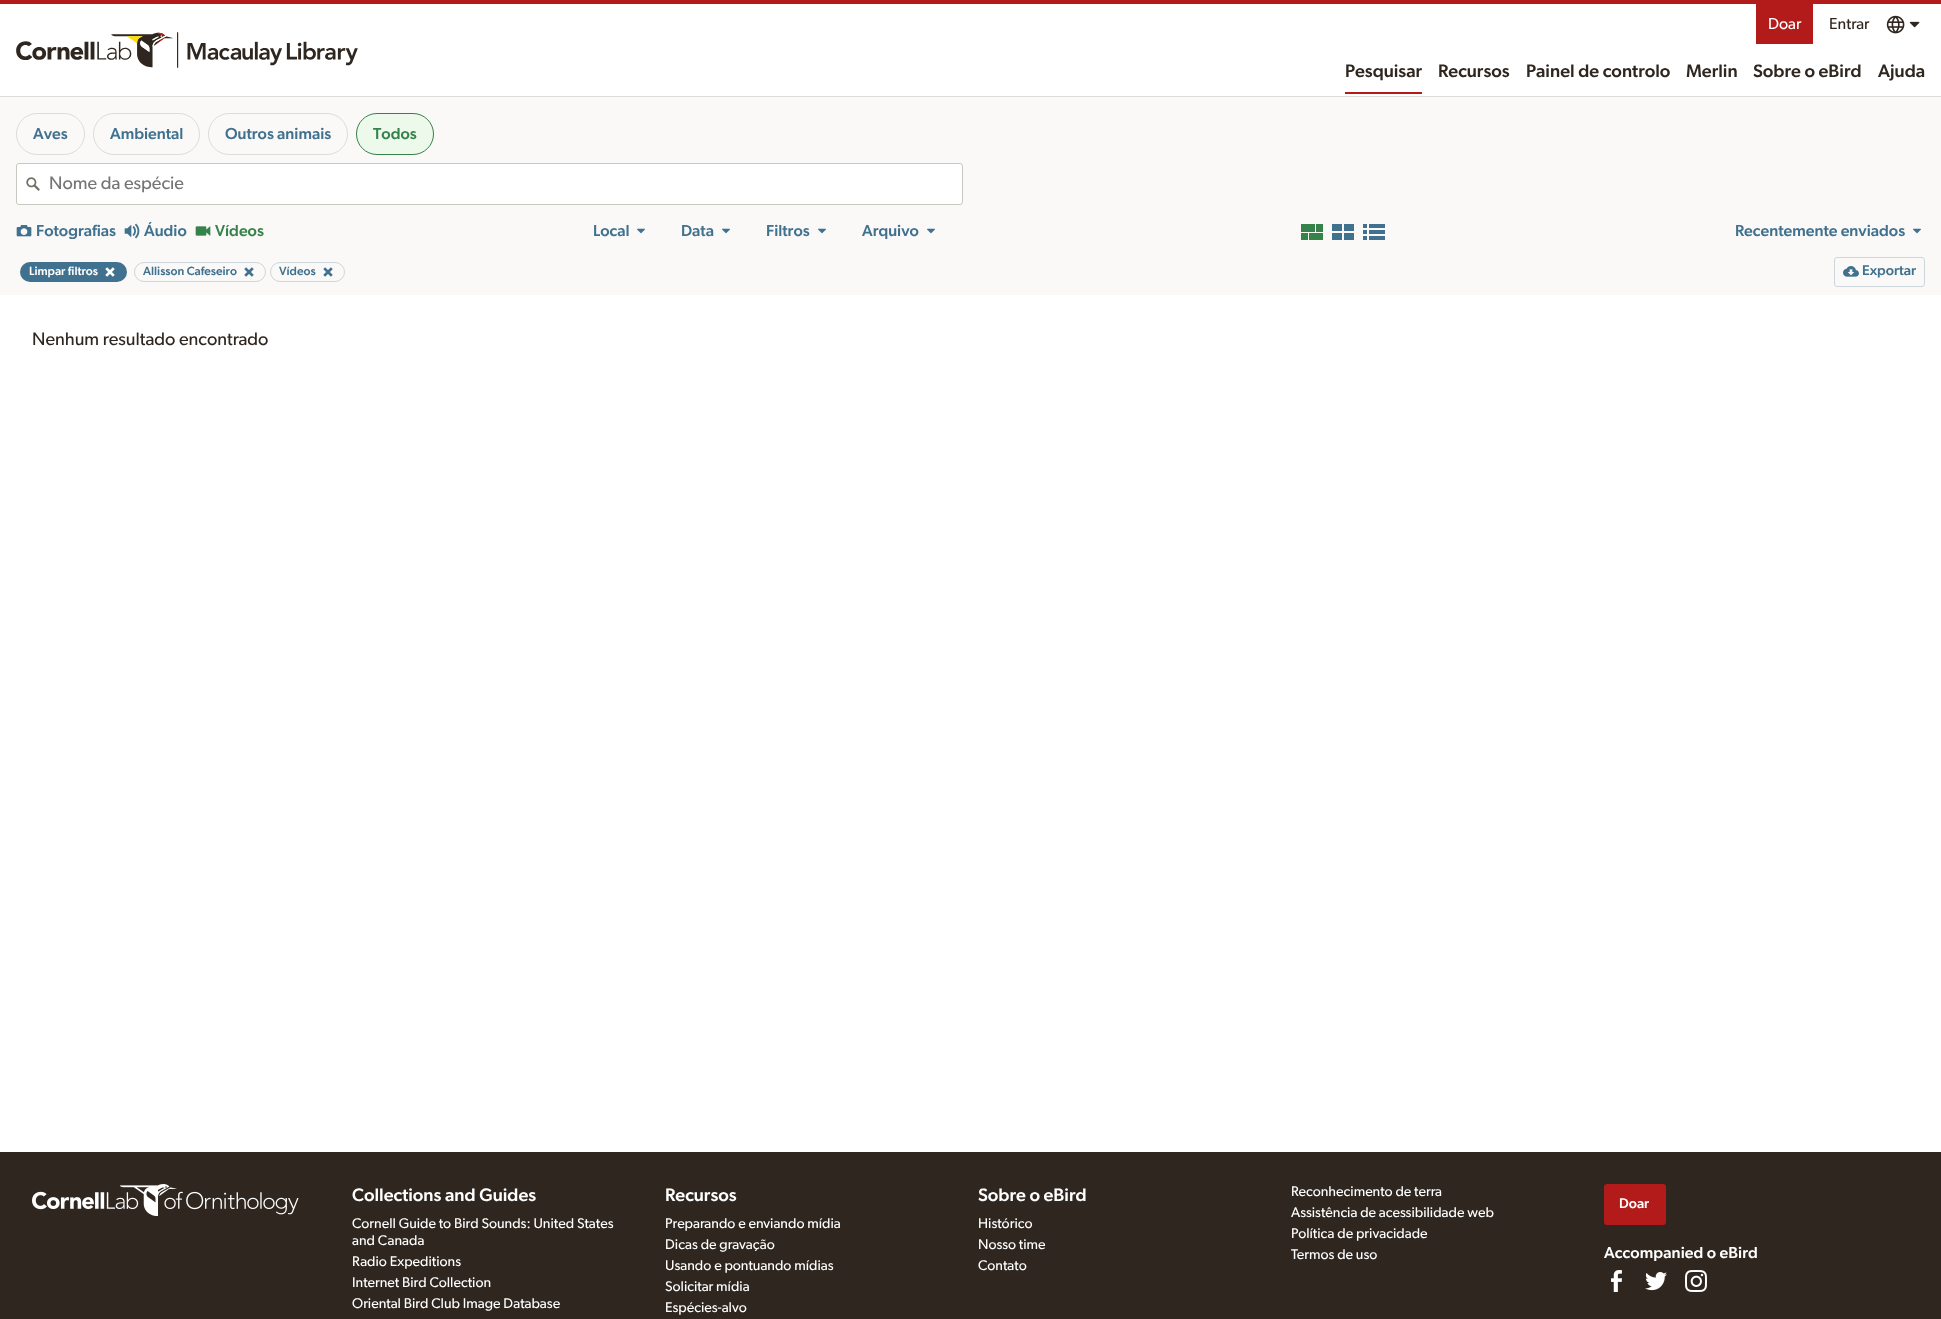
<?xml version="1.0" encoding="UTF-8"?>
<svg xmlns="http://www.w3.org/2000/svg" width="1941" height="1319">
    <rect width="100%" height="100%" fill="#FFFFFF"/>
    <rect x="0" y="0" width="1941" height="4" fill="#B31B1B"/>
    <rect x="0" y="96" width="1941" height="1" fill="#DBDBD9"/>
    <image x="16" y="32" width="342" height="36" href="img_01.png"/>
    <rect x="1756" y="4" width="57" height="40" fill="#B31B1B"/>
    <text x="1768" y="29" font-family="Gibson" font-size="16" fill="#FFFFFF">Doar</text>
    <text x="1829" y="29" font-family="Gibson" font-size="16" fill="#2E261F">Entrar</text>
    <image x="1886" y="15" width="19" height="19" href="img_02.png"/>
    <image x="1909" y="21" width="11" height="7" href="img_03.png"/>
    <rect x="1345" y="92" width="77" height="2" fill="#B31B1B"/>
    <text x="1345" y="77" font-family="Gibson" font-size="18.1" font-weight="500" fill="#2E261F">Pesquisar</text>
    <text x="1438" y="77" font-family="Gibson" font-size="18.1" font-weight="500" fill="#2E261F">Recursos</text>
    <text x="1526" y="77" font-family="Gibson" font-size="18.1" font-weight="500" fill="#2E261F">Painel de controlo</text>
    <text x="1686" y="77" font-family="Gibson" font-size="18.1" font-weight="500" fill="#2E261F">Merlin</text>
    <text x="1753" y="77" font-family="Gibson" font-size="18.1" font-weight="500" fill="#2E261F">Sobre o eBird</text>
    <text x="1878" y="77" font-family="Gibson" font-size="18.1" font-weight="500" fill="#2E261F">Ajuda</text>
    <rect x="0" y="97" width="1941" height="198" fill="#FAF9F7"/>
    <rect x="16.5" y="113.5" width="68" height="41" rx="20.5" fill="none" stroke="#DDDCD5"/>
    <text x="33" y="139" font-family="Gibson" font-size="16" font-weight="500" fill="#40718F">Aves</text>
    <rect x="93.5" y="113.5" width="106" height="41" rx="20.5" fill="none" stroke="#DDDCD5"/>
    <text x="110" y="139" font-family="Gibson" font-size="16" font-weight="500" fill="#40718F">Ambiental</text>
    <rect x="208.5" y="113.5" width="139" height="41" rx="20.5" fill="none" stroke="#DDDCD5"/>
    <text x="225" y="139" font-family="Gibson" font-size="16" font-weight="500" fill="#40718F">Outros animais</text>
    <rect x="356.5" y="113.5" width="77" height="41" rx="20.5" fill="#ECF9EB" stroke="#36824B"/>
    <text x="373" y="139" font-family="Gibson" font-size="16" font-weight="500" fill="#36824B">Todos</text>
    <rect x="16.5" y="163.5" width="946" height="41" rx="2.5" fill="#FFFFFF" stroke="#C8C7C0"/>
    <image x="26" y="177" width="14" height="14" href="img_04.png"/>
    <text x="49" y="189" font-family="Gibson" font-size="18.1" fill="#757575">Nome da espécie</text>
    <image x="16" y="225" width="16" height="12" href="img_05.png"/>
    <text x="36" y="236" font-family="Gibson" font-size="16" font-weight="500" fill="#40718F">Fotografias</text>
    <image x="124" y="223" width="16" height="16" href="img_06.png"/>
    <text x="144" y="236" font-family="Gibson" font-size="16" font-weight="500" fill="#40718F">Áudio</text>
    <image x="195" y="226" width="16" height="10" href="img_07.png"/>
    <text x="215" y="236" font-family="Gibson" font-size="16" font-weight="500" fill="#36824B">Vídeos</text>
    <text x="593" y="236" font-family="Gibson" font-size="16" font-weight="500" fill="#40718F">Local</text>
    <image x="637" y="228" width="8" height="6" href="img_08.png"/>
    <text x="681" y="236" font-family="Gibson" font-size="16" font-weight="500" fill="#40718F">Data</text>
    <image x="722" y="228" width="8" height="6" href="img_08.png"/>
    <text x="766" y="236" font-family="Gibson" font-size="16" font-weight="500" fill="#40718F">Filtros</text>
    <image x="818" y="228" width="8" height="6" href="img_08.png"/>
    <text x="862" y="236" font-family="Gibson" font-size="16" font-weight="500" fill="#40718F">Arquivo</text>
    <image x="927" y="228" width="8" height="6" href="img_08.png"/>
    <image x="1301" y="224" width="22" height="16" href="img_09.png"/>
    <image x="1332" y="224" width="22" height="16" href="img_10.png"/>
    <image x="1363" y="224" width="22" height="16" href="img_11.png"/>
    <text x="1735" y="236" font-family="Gibson" font-size="16" font-weight="500" fill="#40718F">Recentemente enviados</text>
    <image x="1913" y="228" width="8" height="6" href="img_08.png"/>
    <rect x="20" y="262" width="107" height="20" rx="10" fill="#40718F"/>
    <text x="29" y="275" font-family="Gibson" font-size="12" font-weight="500" fill="#FFFFFF">Limpar filtros</text>
    <image x="105" y="267" width="10" height="10" href="img_12.png"/>
    <rect x="134.5" y="262.5" width="131" height="19" rx="9.5" fill="none" stroke="#CCD7DD"/>
    <text x="143" y="275" font-family="Gibson" font-size="12" font-weight="500" fill="#40718F">Allisson Cafeseiro</text>
    <image x="244" y="267" width="10" height="10" href="img_13.png"/>
    <rect x="270.5" y="262.5" width="74" height="19" rx="9.5" fill="none" stroke="#CCD7DD"/>
    <text x="279" y="275" font-family="Gibson" font-size="12" font-weight="500" fill="#40718F">Vídeos</text>
    <image x="323" y="267" width="10" height="10" href="img_13.png"/>
    <rect x="1834.5" y="257.5" width="90" height="29" rx="2.5" fill="none" stroke="#CCD7DD"/>
    <image x="1843" y="266" width="16" height="11" href="img_14.png"/>
    <text x="1862" y="275" font-family="Gibson" font-size="14.1" font-weight="500" fill="#40718F">Exportar</text>
    <text x="32" y="345" font-family="Gibson" font-size="18.1" fill="#2E261F">Nenhum resultado encontrado</text>
    <rect x="0" y="1152" width="1941" height="167" fill="#2E261F"/>
    <image x="32" y="1184" width="267" height="32" href="img_15.png"/>
    <text x="352" y="1201" font-family="Gibson" font-size="18.1" font-weight="500" fill="#FFFFFF">Collections and Guides</text>
    <text font-family="Gibson" font-size="14.1" fill="#FFFFFF">
        <tspan x="352" y="1228">Cornell Guide to Bird Sounds: United States</tspan>
        <tspan x="352" y="1245">and Canada</tspan>
        <tspan x="352" y="1266">Radio Expeditions</tspan>
        <tspan x="352" y="1287">Internet Bird Collection</tspan>
        <tspan x="352" y="1308">Oriental Bird Club Image Database</tspan>
    </text>
    <text x="665" y="1201" font-family="Gibson" font-size="18.1" font-weight="500" fill="#FFFFFF">Recursos</text>
    <text font-family="Gibson" font-size="14.1" fill="#FFFFFF">
        <tspan x="665" y="1228">Preparando e enviando mídia</tspan>
        <tspan x="665" y="1249">Dicas de gravação</tspan>
        <tspan x="665" y="1270">Usando e pontuando mídias</tspan>
        <tspan x="665" y="1291">Solicitar mídia</tspan>
        <tspan x="665" y="1312">Espécies-alvo</tspan>
    </text>
    <text x="978" y="1201" font-family="Gibson" font-size="18.1" font-weight="500" fill="#FFFFFF">Sobre o eBird</text>
    <text font-family="Gibson" font-size="14.1" fill="#FFFFFF">
        <tspan x="978" y="1228">Histórico</tspan>
        <tspan x="978" y="1249">Nosso time</tspan>
        <tspan x="978" y="1270">Contato</tspan>
    </text>
    <text font-family="Gibson" font-size="14.1" fill="#FFFFFF">
        <tspan x="1291" y="1196">Reconhecimento de terra</tspan>
        <tspan x="1291" y="1217">Assistência de acessibilidade web</tspan>
        <tspan x="1291" y="1238">Política de privacidade</tspan>
        <tspan x="1291" y="1259">Termos de uso</tspan>
    </text>
    <rect x="1604" y="1184" width="62" height="41" rx="3" fill="#B31B1B"/>
    <text x="1619" y="1208" font-family="Gibson" font-size="14" font-weight="500" fill="#FFFFFF">Doar</text>
    <text x="1604" y="1258" font-family="Gibson" font-size="16" font-weight="500" letter-spacing="0.1" fill="#FFFFFF">Accompanied o eBird</text>
    <image x="1611" y="1270" width="11" height="22" href="img_16.png"/>
    <image x="1645" y="1272" width="22" height="19" href="img_17.png"/>
    <image x="1685" y="1270" width="22" height="22" href="img_18.png"/>
</svg>
